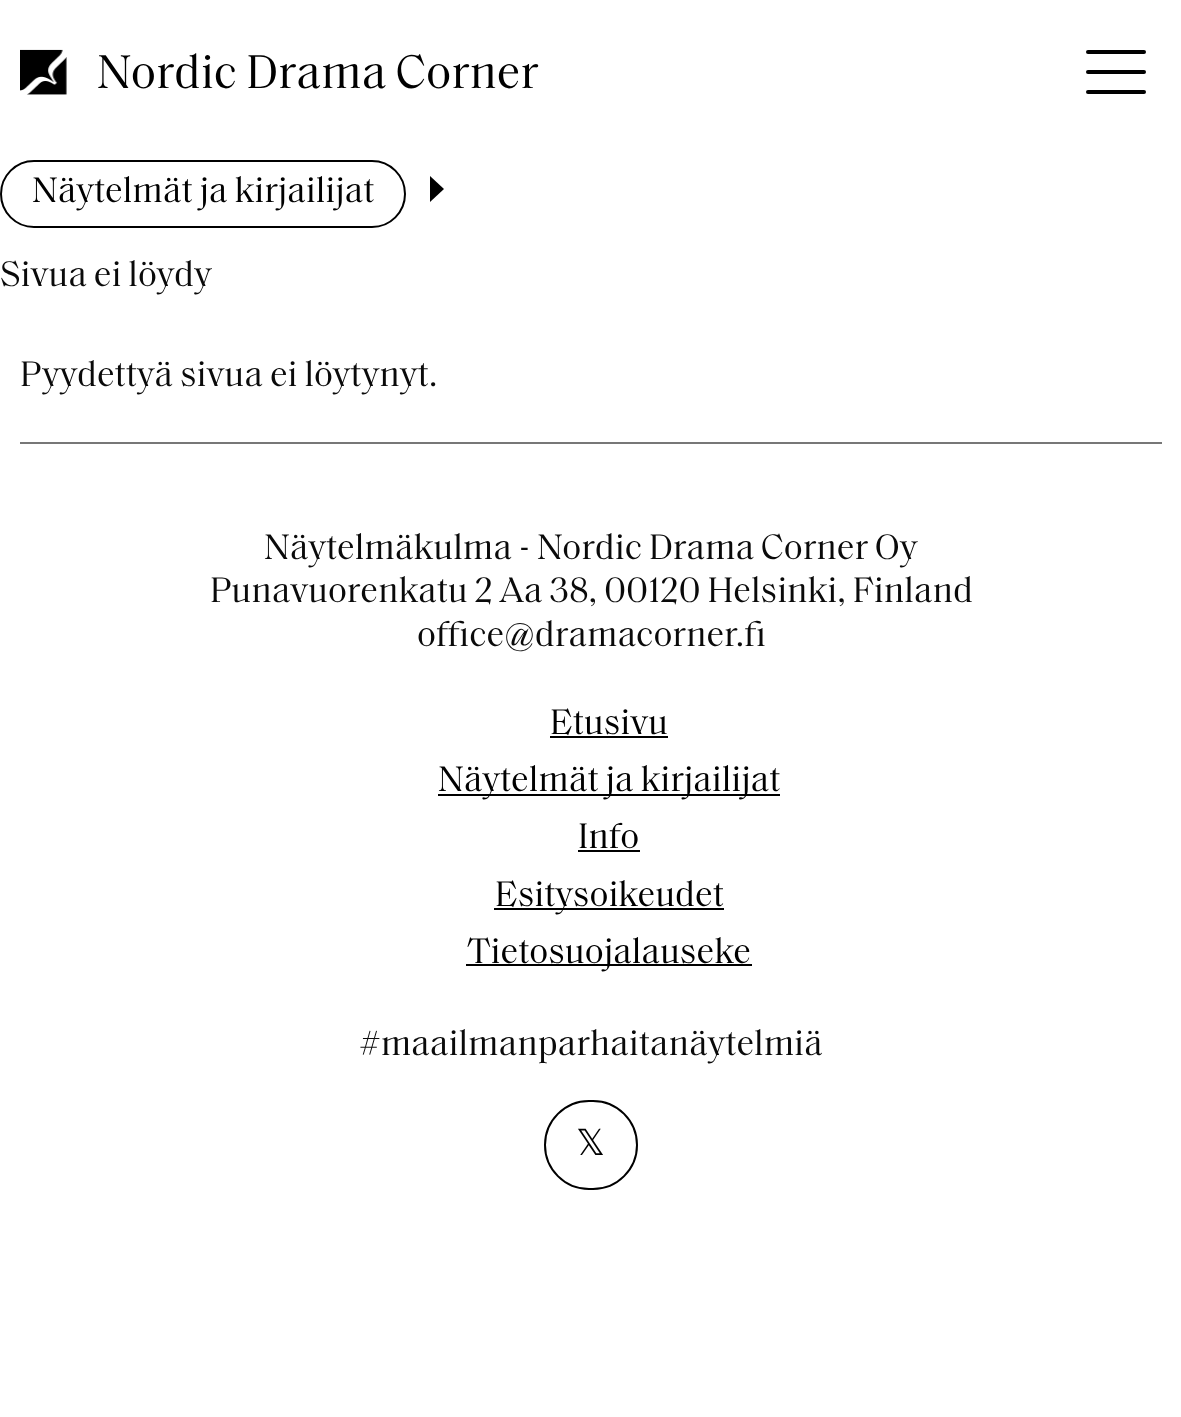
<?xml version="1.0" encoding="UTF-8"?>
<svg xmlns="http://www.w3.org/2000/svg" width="1181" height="1417">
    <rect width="100%" height="100%" fill="#FFFFFF"/>
    <image x="20" y="49" width="47" height="46" href="img_01.png"/>
    <text x="97" y="88" font-family="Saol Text" font-size="48" fill="#000000">Nordic Drama Corner</text>
    <rect x="1086" y="50" width="60" height="4" rx="2" fill="#000000"/>
    <rect x="1086" y="70" width="60" height="4" rx="2" fill="#000000"/>
    <rect x="1086" y="90" width="60" height="4" rx="2" fill="#000000"/>
    <rect x="1" y="161" width="404" height="66" rx="33" fill="none" stroke="#000000" stroke-width="2"/>
    <text x="32" y="202" font-family="Saol Text" font-size="36" fill="#000000">Näytelmät ja kirjailijat</text>
    <path d="M 444 189 L 430 202 V 176 Z" fill="#000000"/>
    <text x="0" y="286" font-family="Saol Text" font-size="36" fill="#0A0A0A">Sivua ei löydy</text>
    <text x="20" y="386" font-family="Saol Text" font-size="36" fill="#0A0A0A">Pyydettyä sivua ei löytynyt.</text>
    <rect x="20" y="442" width="1142" height="2" fill="#777777"/>
    <text x="264" y="559" font-family="Saol Text" font-size="36" fill="#0A0A0A">Näytelmäkulma - Nordic Drama Corner Oy</text>
    <text x="210" y="602" font-family="Saol Text" font-size="36" fill="#0A0A0A">Punavuorenkatu 2 Aa 38, 00120 Helsinki, Finland</text>
    <text x="417" y="646" font-family="Saol Text" font-size="36" fill="#0A0A0A">office@dramacorner.fi</text>
    <text x="550" y="734" font-family="Saol Text" font-size="36" fill="#000000">Etusivu</text>
    <rect x="550" y="736" width="118" height="2" fill="#000000"/>
    <rect x="438" y="794" width="342" height="2" fill="#000000"/>
    <text x="438" y="791" font-family="Saol Text" font-size="36" fill="#000000">Näytelmät ja kirjailijat</text>
    <text x="578" y="848" font-family="Saol Text" font-size="36" fill="#000000">Info</text>
    <rect x="578" y="850" width="62" height="2" fill="#000000"/>
    <rect x="494" y="908" width="230" height="2" fill="#000000"/>
    <text x="495" y="906" font-family="Saol Text" font-size="36" fill="#000000">Esitysoikeudet</text>
    <rect x="466" y="964" width="286" height="2" fill="#000000"/>
    <text x="467" y="963" font-family="Saol Text" font-size="36" fill="#000000">Tietosuojalauseke</text>
    <text x="359" y="1055" font-family="Saol Text" font-size="36" fill="#0A0A0A">#maailmanparhaitanäytelmiä</text>
    <rect x="545" y="1101" width="92" height="88" rx="44" fill="none" stroke="#000000" stroke-width="2"/>
    <text x="576" y="1155" font-family="DejaVu Sans" font-size="36" fill="#000000">𝕏</text>
</svg>
